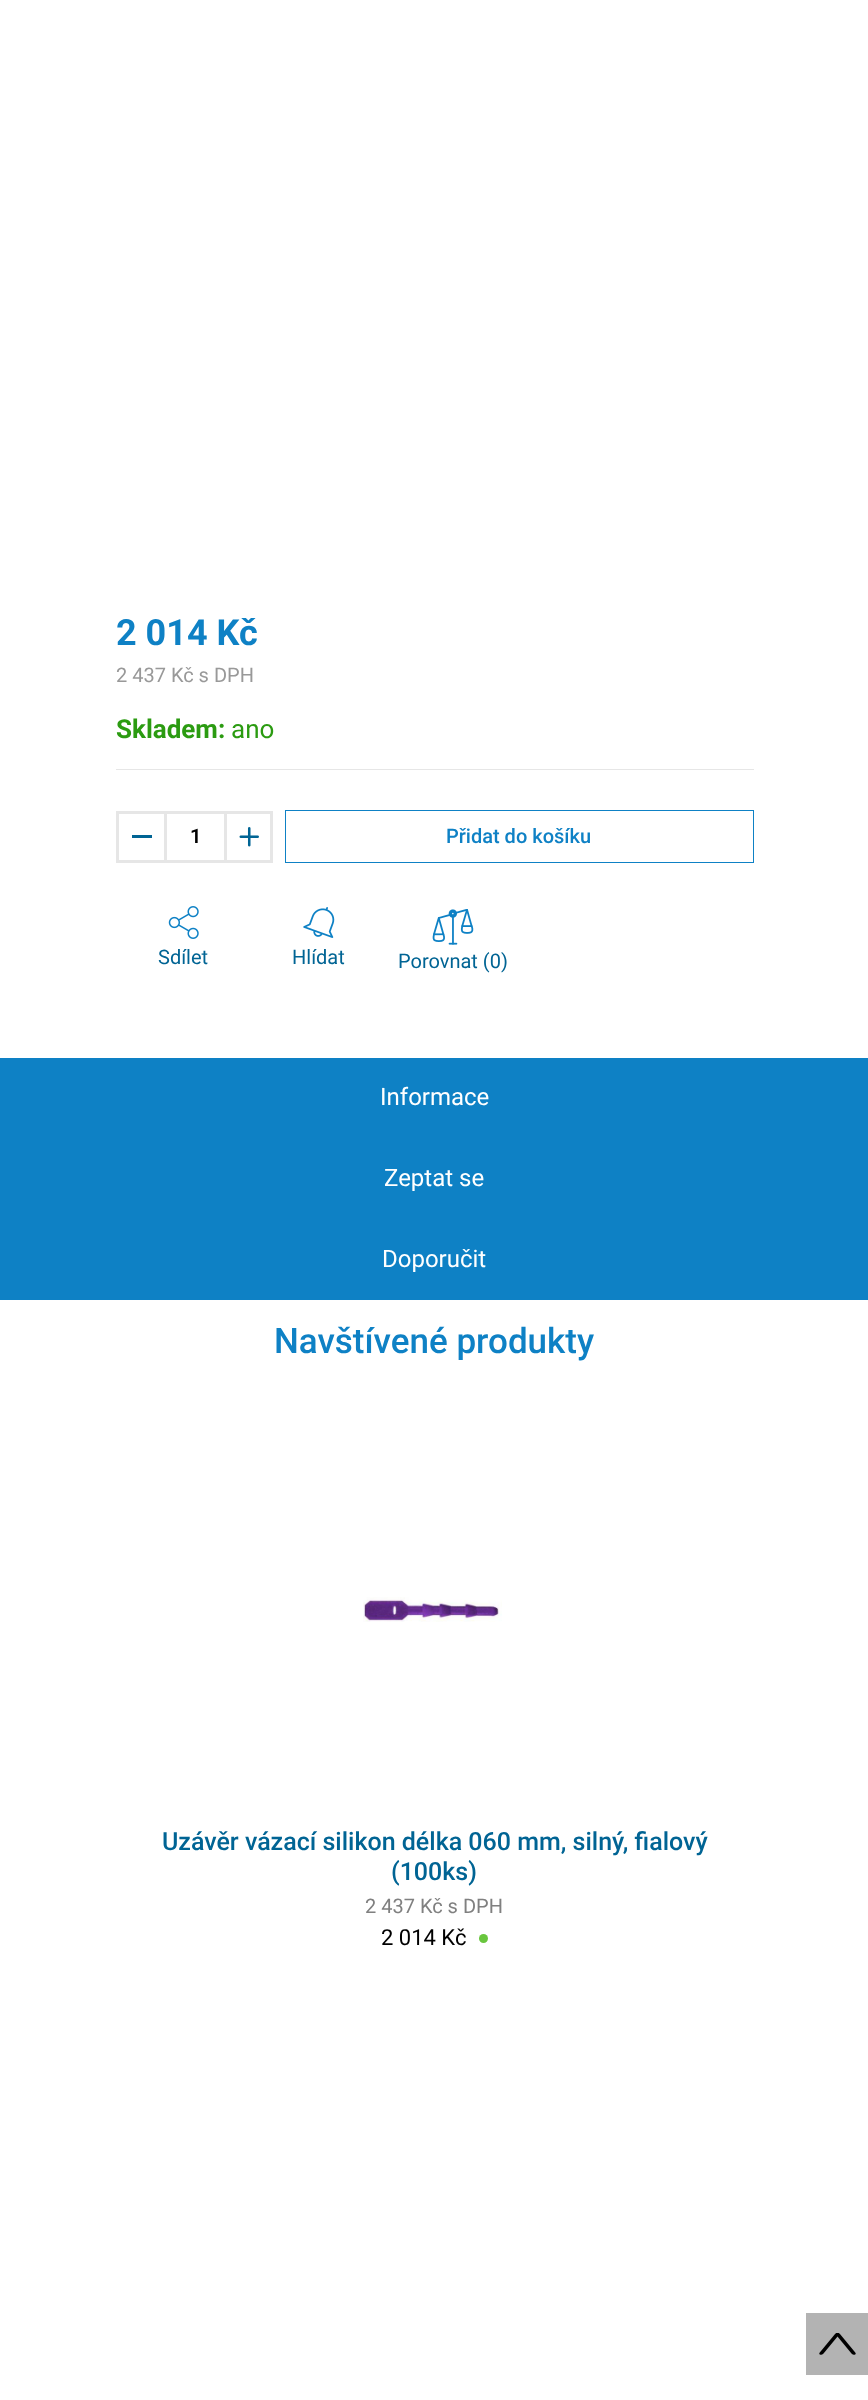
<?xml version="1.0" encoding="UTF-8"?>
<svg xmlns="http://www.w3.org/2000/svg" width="868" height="2400">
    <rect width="100%" height="100%" fill="#FFFFFF"/>
    <text x="116" y="645" font-family="Roboto" font-size="36" font-weight="700" fill="#0E81C5">2 014 Kč</text>
    <text x="116" y="682" font-family="Roboto" font-size="20" fill="#999999">2 437 Kč s DPH</text>
    <text x="116" y="738" font-family="Roboto" font-size="26" font-weight="700" fill="#2B9B11">Skladem:</text>
    <text x="231" y="738" font-family="Roboto" font-size="26" fill="#2B9B11">ano</text>
    <rect x="116" y="769" width="638" height="1" fill="#E6E6E6"/>
    <rect x="117.5" y="812.5" width="154" height="49" fill="none" stroke="#E6E6E6" stroke-width="3"/>
    <rect x="132" y="835" width="20" height="3" fill="#006494"/>
    <rect x="224" y="814" width="3" height="46" fill="#E6E6E6"/>
    <rect x="164" y="814" width="3" height="46" fill="#E6E6E6"/>
    <text x="190" y="843" font-family="Roboto" font-size="20" font-weight="600" fill="#000000">1</text>
    <image x="239" y="827" width="20" height="20" href="img_01.png"/>
    <rect x="285.5" y="810.5" width="468" height="52" fill="none" stroke="#0E81C5"/>
    <text x="446" y="843" font-family="Roboto" font-size="20" font-weight="500" fill="#0E81C5">Přidat do košíku</text>
    <image x="168" y="906" width="31" height="33" href="img_02.png"/>
    <text x="158" y="964" font-family="Roboto" font-size="20" fill="#006494">Sdílet</text>
    <image x="303" y="907" width="32" height="31" href="img_03.png"/>
    <text x="292" y="964" font-family="Roboto" font-size="20" fill="#006494">Hlídat</text>
    <image x="432" y="909" width="42" height="36" href="img_04.png"/>
    <text x="398" y="968" font-family="Roboto" font-size="20" fill="#006494">Porovnat (0)</text>
    <rect x="0" y="1058" width="868" height="242" fill="#0E81C5"/>
    <text x="380" y="1105" font-family="Roboto" font-size="24" fill="#FFFFFF">Informace</text>
    <text x="384" y="1186" font-family="Roboto" font-size="24" fill="#FFFFFF">Zeptat se</text>
    <text x="382" y="1267" font-family="Roboto" font-size="24" fill="#FFFFFF">Doporučit</text>
    <text x="274" y="1353" font-family="Roboto" font-size="35" font-weight="500" fill="#0E81C5">Navštívené produkty</text>
    <image x="363" y="1597" width="139" height="25" href="img_05.png"/>
    <text x="162" y="1850" font-family="Roboto" font-size="25" font-weight="500" fill="#006494">Uzávěr vázací silikon délka 060 mm, silný, fialový</text>
    <text x="391" y="1880" font-family="Roboto" font-size="25" font-weight="500" fill="#006494">(100ks)</text>
    <text x="365" y="1913" font-family="Roboto" font-size="20" fill="#808080">2 437 Kč s DPH</text>
    <text x="381" y="1945" font-family="Roboto" font-size="22" fill="#000000">2 014 Kč</text>
    <circle cx="483.5" cy="1938.5" r="4.5" fill="#69C63E"/>
    <rect x="806" y="2313" width="62" height="62" fill="#B3B3B3"/>
    <image x="819" y="2333" width="37" height="22" href="img_06.png"/>
</svg>
